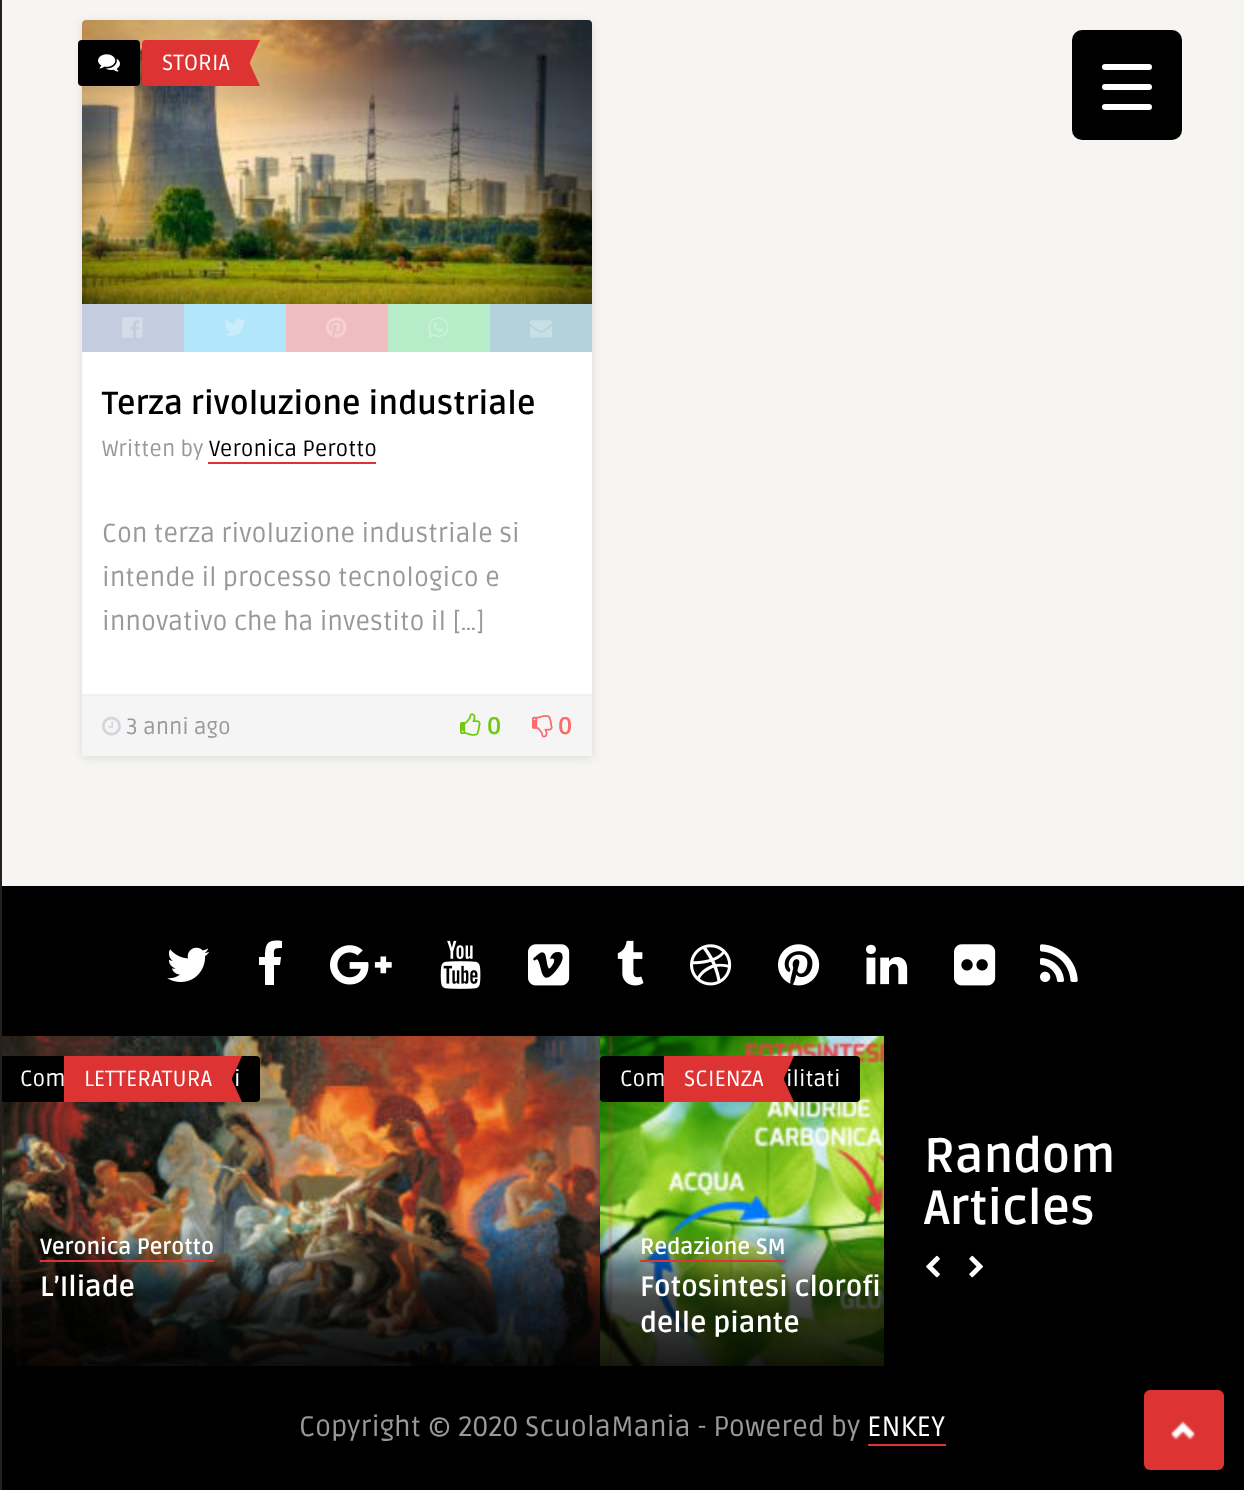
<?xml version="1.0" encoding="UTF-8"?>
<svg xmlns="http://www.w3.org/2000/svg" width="1244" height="1490">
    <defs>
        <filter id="blur1" x="-50%" y="-200%" width="200%" height="500%"><feGaussianBlur stdDeviation="5"/></filter>
    </defs>
    <rect width="100%" height="100%" fill="#F6F5F2"/>
    <rect x="2" y="886" width="1242" height="604" fill="#000000"/>
    <image x="2" y="1036" width="598" height="330" href="img_21.png"/>
    <rect x="0" y="1056" width="260" height="46" rx="4" fill="#000000"/>
    <rect x="0" y="0" width="2" height="1490" fill="#212121"/>
    <rect x="82" y="22" width="510" height="736" fill="#000000" fill-opacity="0.1" filter="url(#blur1)"/>
    <rect x="82" y="20" width="510" height="674" fill="#FFFFFF"/>
    <image x="82" y="20" width="510" height="284" href="img_01.png"/>
    <rect x="78" y="40" width="62" height="46" rx="4" fill="#000000"/>
    <image x="98" y="54" width="22" height="18" href="img_02.png"/>
    <rect x="142" y="40" width="108" height="46" rx="4" fill="#DD3333"/>
    <text x="162" y="70" font-family="Ruda" font-size="22" fill="#FFFFFF">STORIA</text>
    <path d="M 230 40 H 260 L 250 62 Z M 260 86 H 230 L 250 64 Z" fill="#DD3333"/>
    <rect x="82" y="304" width="102" height="48" fill="#C4CDE0"/>
    <image x="122" y="317" width="21" height="21" href="img_03.png"/>
    <rect x="184" y="304" width="102" height="48" fill="#B3E6FA"/>
    <image x="225" y="319" width="21" height="17" href="img_04.png"/>
    <rect x="286" y="304" width="102" height="48" fill="#EFBCBF"/>
    <image x="326" y="317" width="21" height="21" href="img_05.png"/>
    <rect x="388" y="304" width="102" height="48" fill="#B6ECC7"/>
    <image x="428" y="317" width="21" height="21" href="img_06.png"/>
    <rect x="490" y="304" width="102" height="48" fill="#B3D2DC"/>
    <image x="530" y="320" width="22" height="18" href="img_07.png"/>
    <text x="102" y="414" font-family="Ruda" font-size="32" font-weight="700" fill="#000000">Terza rivoluzione industriale</text>
    <text x="102" y="456" font-family="Ruda" font-size="22" fill="#999999">Written by</text>
    <text x="209" y="456" font-family="Ruda" font-size="22" fill="#000000">Veronica Perotto</text>
    <rect x="208" y="462" width="168" height="2" fill="#DD3333"/>
    <text font-family="Ruda" font-size="26" fill="#999999">
        <tspan x="102" y="542">Con terza rivoluzione industriale si</tspan>
        <tspan x="102" y="586">intende il processo tecnologico e</tspan>
        <tspan x="102" y="630">innovativo che ha investito il […]</tspan>
    </text>
    <rect x="82" y="696" width="510" height="60" fill="#F5F5F5"/>
    <rect x="82" y="694" width="510" height="2" fill="#F1F1F1"/>
    <image x="102" y="716" width="19" height="20" href="img_08.png"/>
    <text x="126" y="734" font-family="Ruda" font-size="22" fill="#999999">3 anni ago</text>
    <image x="460" y="713" width="21" height="23" href="img_09.png"/>
    <text x="487" y="734" font-family="Ruda" font-size="24" font-weight="700" fill="#6ECB0A">0</text>
    <image x="532" y="715" width="21" height="23" href="img_10.png"/>
    <text x="558" y="734" font-family="Ruda" font-size="24" font-weight="700" fill="#FE6969">0</text>
    <rect x="1072" y="30" width="110" height="110" rx="10" fill="#000000"/>
    <rect x="1102" y="84" width="50" height="6" rx="3" fill="#FFFFFF"/>
    <rect x="1102" y="64" width="50" height="6" rx="3" fill="#FFFFFF"/>
    <rect x="1102" y="104" width="50" height="6" rx="3" fill="#FFFFFF"/>
    <image x="167" y="947" width="43" height="35" href="img_11.png"/>
    <path d="M 282 941 V 948 C 273 948 274 949 274 957 H 281 L 280 965 H 274 V 985 H 265 V 965 H 259 V 957 H 265 C 265 944 267 939 282 941 Z" fill="#FFFFFF"/>
    <image x="330" y="945" width="62" height="40" href="img_12.png"/>
    <image x="440" y="940" width="41" height="49" href="img_13.png"/>
    <image x="528" y="944" width="42" height="42" href="img_14.png"/>
    <image x="617" y="940" width="27" height="46" href="img_15.png"/>
    <image x="690" y="944" width="42" height="42" href="img_16.png"/>
    <image x="778" y="944" width="42" height="42" href="img_17.png"/>
    <image x="866" y="944" width="42" height="41" href="img_18.png"/>
    <image x="954" y="944" width="42" height="42" href="img_19.png"/>
    <image x="1040" y="944" width="38" height="38" href="img_20.png"/>
    <text x="20" y="1086" font-family="Ruda" font-size="22" fill="#FFFFFF">Com</text>
    <text x="234" y="1086" font-family="Ruda" font-size="22" fill="#FFFFFF">i</text>
    <rect x="64" y="1056" width="168" height="46" fill="#DD3333"/>
    <text x="84" y="1086" font-family="Ruda" font-size="22" fill="#FFFFFF">LETTERATURA</text>
    <path d="M 212 1056 H 242 L 232 1078 Z M 242 1102 H 212 L 232 1080 Z" fill="#DD3333"/>
    <text x="40" y="1254" font-family="Ruda" font-size="22" font-weight="700" fill="#FFFFFF">Veronica Perotto</text>
    <rect x="40" y="1260" width="174" height="2" fill="#DD3333"/>
    <text x="40" y="1296" font-family="Ruda" font-size="28" font-weight="700" fill="#FFFFFF">L’Iliade</text>
    <image x="600" y="1036" width="284" height="330" href="img_22.png"/>
    <rect x="600" y="1056" width="260" height="46" rx="4" fill="#000000"/>
    <text x="620" y="1086" font-family="Ruda" font-size="22" fill="#FFFFFF">Com</text>
    <text x="786" y="1086" font-family="Ruda" font-size="22" fill="#FFFFFF">ilitati</text>
    <rect x="664" y="1056" width="120" height="46" fill="#DD3333"/>
    <text x="684" y="1086" font-family="Ruda" font-size="22" fill="#FFFFFF">SCIENZA</text>
    <path d="M 764 1056 H 794 L 784 1078 Z M 794 1102 H 764 L 784 1080 Z" fill="#DD3333"/>
    <text x="640" y="1254" font-family="Ruda" font-size="22" font-weight="700" fill="#FFFFFF">Redazione SM</text>
    <rect x="640" y="1260" width="146" height="2" fill="#DD3333"/>
    <text font-family="Ruda" font-size="28" font-weight="700" fill="#FFFFFF">
        <tspan x="640" y="1296">Fotosintesi clorofi</tspan>
        <tspan x="640" y="1332">delle piante</tspan>
    </text>
    <text font-family="Ruda" font-size="48" font-weight="700" fill="#FFFFFF">
        <tspan x="924" y="1172">Random</tspan>
        <tspan x="924" y="1224">Articles</tspan>
    </text>
    <image x="926" y="1255" width="14" height="23" href="img_23.png"/>
    <image x="969" y="1255" width="14" height="23" href="img_24.png"/>
    <text x="299" y="1436" font-family="Ruda" font-size="28" fill="#999999">Copyright © 2020 ScuolaMania - Powered by</text>
    <text x="867" y="1436" font-family="Ruda" font-size="28" fill="#FFFFFF">ENKEY</text>
    <rect x="868" y="1444" width="78" height="2" fill="#DD3333"/>
    <rect x="1144" y="1390" width="80" height="80" rx="6" fill="#DD3333"/>
    <image x="1170" y="1421" width="25" height="20" href="img_25.png"/>
</svg>
